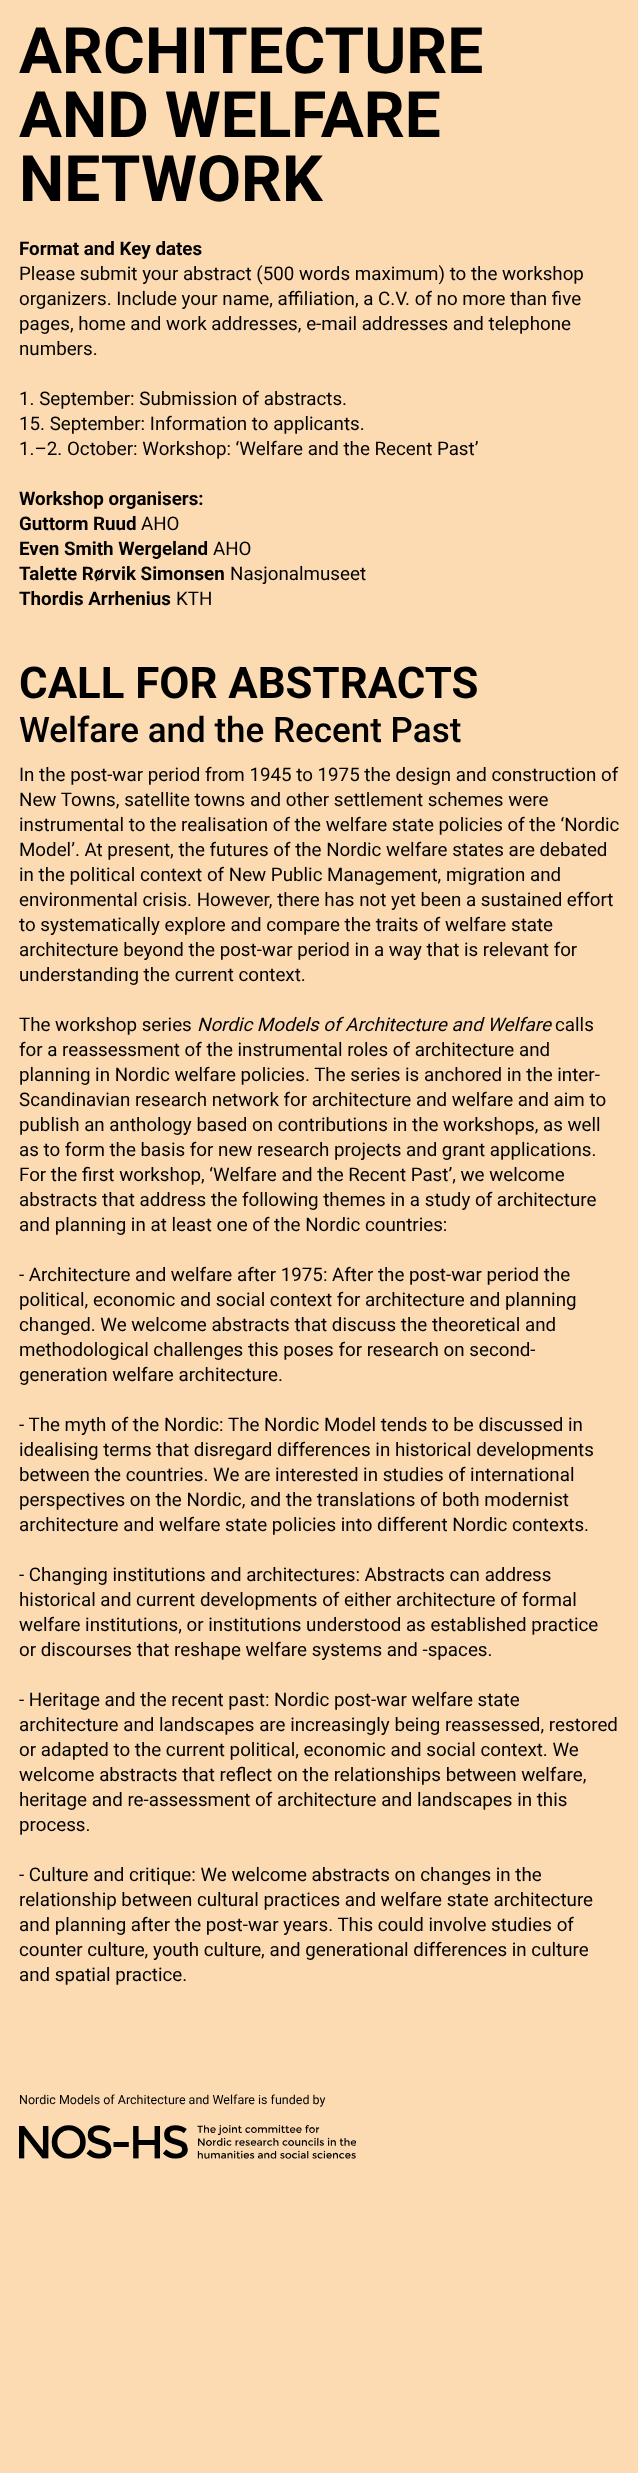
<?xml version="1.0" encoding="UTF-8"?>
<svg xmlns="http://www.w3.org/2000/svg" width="638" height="2473">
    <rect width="100%" height="100%" fill="#FCDBB3"/>
    <text font-family="Roboto" font-size="64" font-weight="700" fill="#000000">
        <tspan x="19" y="73">ARCHITECTURE</tspan>
        <tspan x="19" y="137">AND WELFARE</tspan>
        <tspan x="19" y="201">NETWORK</tspan>
    </text>
    <text x="19" y="255" font-family="Roboto" font-size="18.75" font-weight="700" fill="#000000">Format and Key dates</text>
    <text font-family="Roboto" font-size="18.75" fill="#000000">
        <tspan x="19" y="280">Please submit your abstract (500 words maximum) to the workshop</tspan>
        <tspan x="19" y="305">organizers. Include your name, affiliation, a C.V. of no more than five</tspan>
        <tspan x="19" y="330">pages, home and work addresses, e-mail addresses and telephone</tspan>
        <tspan x="19" y="355">numbers.</tspan>
    </text>
    <text font-family="Roboto" font-size="18.75" fill="#000000">
        <tspan x="19" y="405">1. September: Submission of abstracts.</tspan>
        <tspan x="19" y="430">15. September: Information to applicants.</tspan>
        <tspan x="19" y="455">1.–2. October: Workshop: ‘Welfare and the Recent Past’</tspan>
    </text>
    <text font-family="Roboto" font-size="18.75" font-weight="700" fill="#000000">
        <tspan x="19" y="505">Workshop organisers:</tspan>
        <tspan x="19" y="530">Guttorm Ruud</tspan>
    </text>
    <text x="141" y="530" font-family="Roboto" font-size="18.75" fill="#000000">AHO</text>
    <text x="19" y="555" font-family="Roboto" font-size="18.75" font-weight="700" fill="#000000">Even Smith Wergeland</text>
    <text x="213" y="555" font-family="Roboto" font-size="18.75" fill="#000000">AHO</text>
    <text x="19" y="580" font-family="Roboto" font-size="18.75" font-weight="700" fill="#000000">Talette Rørvik Simonsen</text>
    <text x="230" y="580" font-family="Roboto" font-size="18.75" fill="#000000">Nasjonalmuseet</text>
    <text x="19" y="605" font-family="Roboto" font-size="18.75" font-weight="700" fill="#000000">Thordis Arrhenius</text>
    <text x="176" y="605" font-family="Roboto" font-size="18.75" fill="#000000">KTH</text>
    <text x="19" y="698" font-family="Roboto" font-size="43.75" font-weight="700" fill="#000000">CALL FOR ABSTRACTS</text>
    <text x="19" y="742" font-family="Roboto" font-size="35" font-weight="500" fill="#000000">Welfare and the Recent Past</text>
    <text font-family="Roboto" font-size="18.75" fill="#000000">
        <tspan x="19" y="781">In the post-war period from 1945 to 1975 the design and construction of</tspan>
        <tspan x="19" y="806">New Towns, satellite towns and other settlement schemes were</tspan>
        <tspan x="19" y="831">instrumental to the realisation of the welfare state policies of the ‘Nordic</tspan>
        <tspan x="19" y="856">Model’. At present, the futures of the Nordic welfare states are debated</tspan>
        <tspan x="19" y="881">in the political context of New Public Management, migration and</tspan>
        <tspan x="19" y="906">environmental crisis. However, there has not yet been a sustained effort</tspan>
        <tspan x="19" y="931">to systematically explore and compare the traits of welfare state</tspan>
        <tspan x="19" y="956">architecture beyond the post-war period in a way that is relevant for</tspan>
        <tspan x="19" y="981">understanding the current context.</tspan>
    </text>
    <text x="19" y="1031" font-family="Roboto" font-size="18.75" fill="#000000">The workshop series</text>
    <text x="197" y="1031" font-family="Roboto" font-size="18.75" font-style="italic" fill="#000000">Nordic Models of Architecture and Welfare</text>
    <text x="555" y="1031" font-family="Roboto" font-size="18.75" fill="#000000">calls</text>
    <text font-family="Roboto" font-size="18.75" fill="#000000">
        <tspan x="19" y="1056">for a reassessment of the instrumental roles of architecture and</tspan>
        <tspan x="19" y="1081">planning in Nordic welfare policies. The series is anchored in the inter-</tspan>
        <tspan x="19" y="1106">Scandinavian research network for architecture and welfare and aim to</tspan>
        <tspan x="19" y="1131">publish an anthology based on contributions in the workshops, as well</tspan>
        <tspan x="19" y="1156">as to form the basis for new research projects and grant applications.</tspan>
        <tspan x="19" y="1181">For the first workshop, ‘Welfare and the Recent Past’, we welcome</tspan>
        <tspan x="19" y="1206">abstracts that address the following themes in a study of architecture</tspan>
        <tspan x="19" y="1231">and planning in at least one of the Nordic countries:</tspan>
    </text>
    <text font-family="Roboto" font-size="18.75" fill="#000000">
        <tspan x="19" y="1281">- Architecture and welfare after 1975: After the post-war period the</tspan>
        <tspan x="19" y="1306">political, economic and social context for architecture and planning</tspan>
        <tspan x="19" y="1331">changed. We welcome abstracts that discuss the theoretical and</tspan>
        <tspan x="19" y="1356">methodological challenges this poses for research on second-</tspan>
        <tspan x="19" y="1381">generation welfare architecture.</tspan>
    </text>
    <text font-family="Roboto" font-size="18.75" fill="#000000">
        <tspan x="19" y="1431">- The myth of the Nordic: The Nordic Model tends to be discussed in</tspan>
        <tspan x="19" y="1456">idealising terms that disregard differences in historical developments</tspan>
        <tspan x="19" y="1481">between the countries. We are interested in studies of international</tspan>
        <tspan x="19" y="1506">perspectives on the Nordic, and the translations of both modernist</tspan>
        <tspan x="19" y="1531">architecture and welfare state policies into different Nordic contexts.</tspan>
    </text>
    <text font-family="Roboto" font-size="18.75" fill="#000000">
        <tspan x="19" y="1581">- Changing institutions and architectures: Abstracts can address</tspan>
        <tspan x="19" y="1606">historical and current developments of either architecture of formal</tspan>
        <tspan x="19" y="1631">welfare institutions, or institutions understood as established practice</tspan>
        <tspan x="19" y="1656">or discourses that reshape welfare systems and -spaces.</tspan>
    </text>
    <text font-family="Roboto" font-size="18.75" fill="#000000">
        <tspan x="19" y="1706">- Heritage and the recent past: Nordic post-war welfare state</tspan>
        <tspan x="19" y="1731">architecture and landscapes are increasingly being reassessed, restored</tspan>
        <tspan x="19" y="1756">or adapted to the current political, economic and social context. We</tspan>
        <tspan x="19" y="1781">welcome abstracts that reflect on the relationships between welfare,</tspan>
        <tspan x="19" y="1806">heritage and re-assessment of architecture and landscapes in this</tspan>
        <tspan x="19" y="1831">process.</tspan>
    </text>
    <text font-family="Roboto" font-size="18.75" fill="#000000">
        <tspan x="19" y="1881">- Culture and critique: We welcome abstracts on changes in the</tspan>
        <tspan x="19" y="1906">relationship between cultural practices and welfare state architecture</tspan>
        <tspan x="19" y="1931">and planning after the post-war years. This could involve studies of</tspan>
        <tspan x="19" y="1956">counter culture, youth culture, and generational differences in culture</tspan>
        <tspan x="19" y="1981">and spatial practice.</tspan>
    </text>
    <text x="19" y="2104" font-family="Roboto" font-size="12.5" fill="#000000">Nordic Models of Architecture and Welfare is funded by</text>
    <image x="19" y="2125" width="337" height="34" href="img_01.png"/>
</svg>
